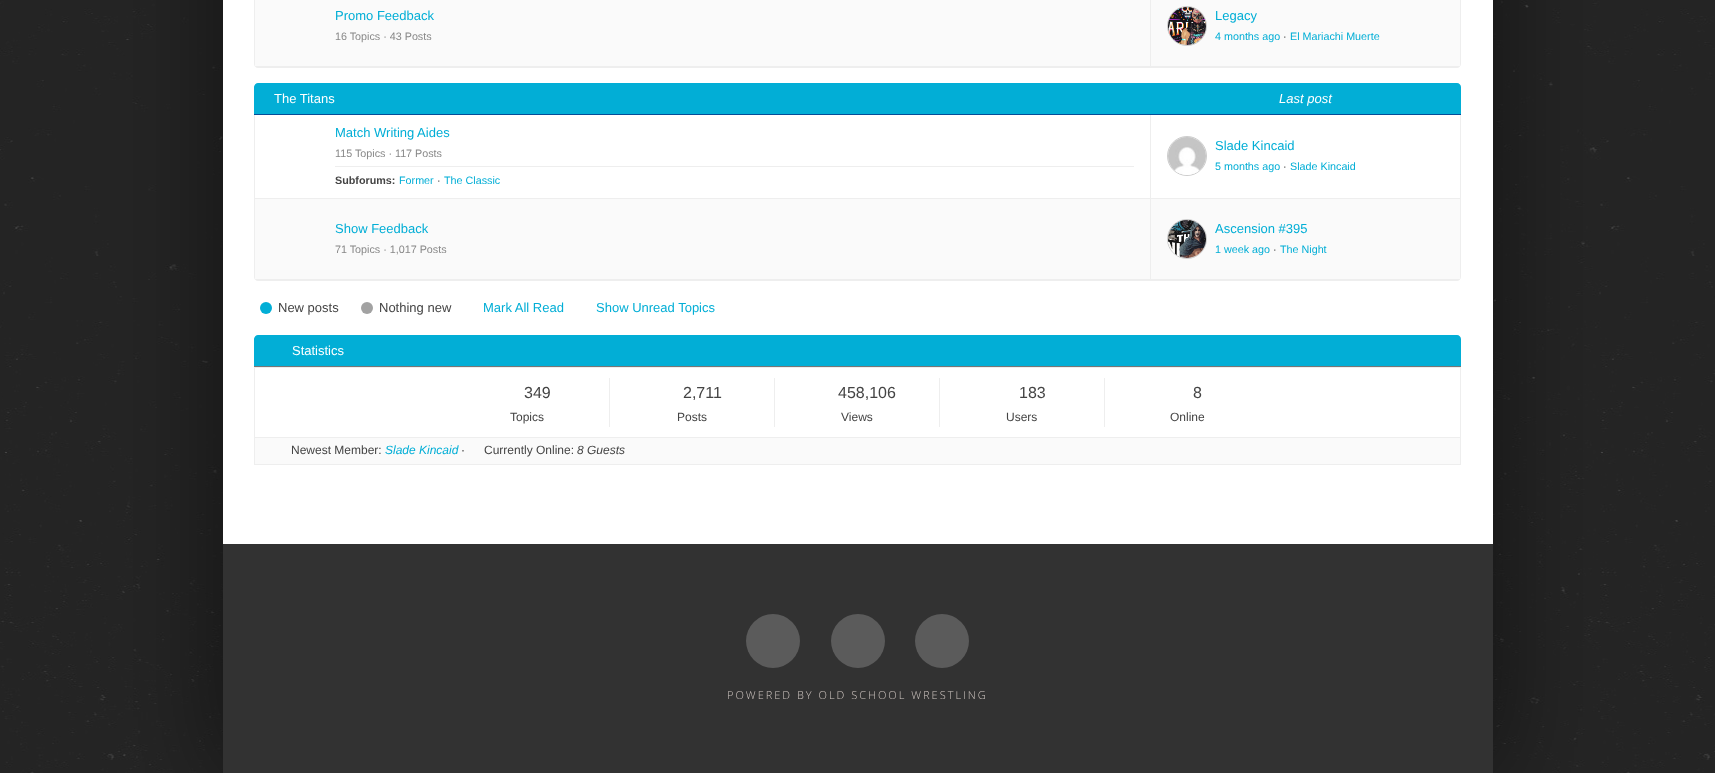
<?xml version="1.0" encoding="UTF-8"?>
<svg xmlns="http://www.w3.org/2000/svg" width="1715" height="773">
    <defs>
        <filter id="blur1" x="-50%" y="-200%" width="200%" height="500%"><feGaussianBlur stdDeviation="50"/></filter>
    </defs>
    <rect width="100%" height="100%" fill="#FFFFFF"/>
    <image x="0" y="0" width="1715" height="773" href="img_01.png"/>
    <rect x="223" y="-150" width="1270" height="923" fill="#000000" fill-opacity="0.5" filter="url(#blur1)"/>
    <rect x="223" y="0" width="1270" height="544" fill="#FFFFFF"/>
    <path d="M 254 -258 H 1461 V 64 C 1461 66 1459 68 1457 68 H 258 C 256 68 254 66 254 64 Z M 255 -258 H 1460 V 64 C 1460 65 1459 66 1457 66 H 258 C 256 66 255 65 255 64 Z" fill="#EEEEEE" fill-rule="evenodd"/>
    <rect x="255" y="0" width="1205" height="66" fill="#FAFAFA"/>
    <text x="335" y="20" font-family="Liberation Sans" font-size="13" fill="#02AED6">Promo Feedback</text>
    <text x="335" y="40" font-family="Liberation Sans" font-size="10.75" fill="#888888">16 Topics · 43 Posts</text>
    <rect x="1150" y="0" width="1" height="66" fill="#EEEEEE"/>
    <circle cx="1187" cy="26" r="19.5" fill="#FFFFFF" stroke="#CCCCCC"/>
    <image x="1168" y="7" width="38" height="38" href="img_02.png"/>
    <text x="1215" y="20" font-family="Liberation Sans" font-size="13" fill="#02AED6">Legacy</text>
    <text x="1215" y="40" font-family="Liberation Sans" font-size="10.75" fill="#02AED6">4 months ago</text>
    <text x="1283" y="40" font-family="Liberation Sans" font-size="10.75" fill="#444444">·</text>
    <text x="1290" y="40" font-family="Liberation Sans" font-size="10.75" fill="#02AED6">El Mariachi Muerte</text>
    <path d="M 258 83 H 1457 C 1459 83 1461 85 1461 87 V 115 H 254 V 87 C 254 85 256 83 258 83 Z" fill="#02AED6"/>
    <rect x="254" y="114" width="1207" height="1" fill="#054D98"/>
    <text x="274" y="103" font-family="Liberation Sans" font-size="13" fill="#FFFFFF">The Titans</text>
    <text x="1279" y="103" font-family="Liberation Sans" font-size="13" font-style="italic" fill="#FFFFFF">Last post</text>
    <path d="M 254 115 H 1461 V 277 C 1461 279 1459 281 1457 281 H 258 C 256 281 254 279 254 277 Z M 255 115 H 1460 V 277 C 1460 278 1459 279 1457 279 H 258 C 256 279 255 278 255 277 Z" fill="#EEEEEE" fill-rule="evenodd"/>
    <rect x="255" y="198" width="1205" height="1" fill="#EEEEEE"/>
    <text x="335" y="137" font-family="Liberation Sans" font-size="13" fill="#02AED6">Match Writing Aides</text>
    <text x="335" y="157" font-family="Liberation Sans" font-size="10.75" fill="#888888">115 Topics · 117 Posts</text>
    <rect x="335" y="166" width="799" height="1" fill="#EEEEEE"/>
    <text x="335" y="184" font-family="Liberation Sans" font-size="10.75" font-weight="700" fill="#444444">Subforums:</text>
    <text x="399" y="184" font-family="Liberation Sans" font-size="10.75" fill="#02AED6">Former</text>
    <text x="437" y="184" font-family="Liberation Sans" font-size="10.75" fill="#444444">·</text>
    <text x="444" y="184" font-family="Liberation Sans" font-size="10.75" fill="#02AED6">The Classic</text>
    <rect x="1150" y="115" width="1" height="83" fill="#EEEEEE"/>
    <circle cx="1187" cy="156" r="19.5" fill="none" stroke="#CCCCCC"/>
    <image x="1168" y="137" width="38" height="38" href="img_03.png"/>
    <text x="1215" y="150" font-family="Liberation Sans" font-size="13" fill="#02AED6">Slade Kincaid</text>
    <text x="1215" y="170" font-family="Liberation Sans" font-size="10.75" fill="#02AED6">5 months ago</text>
    <text x="1283" y="170" font-family="Liberation Sans" font-size="10.75" fill="#444444">·</text>
    <text x="1290" y="170" font-family="Liberation Sans" font-size="10.75" fill="#02AED6">Slade Kincaid</text>
    <rect x="255" y="199" width="1205" height="80" fill="#FAFAFA"/>
    <text x="335" y="233" font-family="Liberation Sans" font-size="13" fill="#02AED6">Show Feedback</text>
    <text x="335" y="253" font-family="Liberation Sans" font-size="10.75" fill="#888888">71 Topics · 1,017 Posts</text>
    <rect x="1150" y="199" width="1" height="80" fill="#EEEEEE"/>
    <circle cx="1187" cy="239" r="19.5" fill="#FFFFFF" stroke="#CCCCCC"/>
    <image x="1168" y="220" width="38" height="38" href="img_04.png"/>
    <text x="1215" y="233" font-family="Liberation Sans" font-size="13" fill="#02AED6">Ascension #395</text>
    <text x="1215" y="253" font-family="Liberation Sans" font-size="10.75" fill="#02AED6">1 week ago</text>
    <text x="1273" y="253" font-family="Liberation Sans" font-size="10.75" fill="#444444">·</text>
    <text x="1280" y="253" font-family="Liberation Sans" font-size="10.75" fill="#02AED6">The Night</text>
    <circle cx="266" cy="308" r="6" fill="#02AED6"/>
    <text x="278" y="312" font-family="Liberation Sans" font-size="13" fill="#444444">New posts</text>
    <circle cx="367" cy="308" r="6" fill="#A2A2A2"/>
    <text x="379" y="312" font-family="Liberation Sans" font-size="13" fill="#444444">Nothing new</text>
    <text x="483" y="312" font-family="Liberation Sans" font-size="13" fill="#02AED6">Mark All Read</text>
    <text x="596" y="312" font-family="Liberation Sans" font-size="13" fill="#02AED6">Show Unread Topics</text>
    <path d="M 258 335 H 1457 C 1459 335 1461 337 1461 339 V 367 H 254 V 339 C 254 337 256 335 258 335 Z" fill="#02AED6"/>
    <rect x="254" y="366" width="1207" height="1" fill="#767676"/>
    <text x="292" y="355" font-family="Liberation Sans" font-size="13" fill="#FFFFFF">Statistics</text>
    <rect x="254.5" y="367.5" width="1206" height="97" fill="none" stroke="#EEEEEE"/>
    <rect x="609" y="378" width="1" height="49" fill="#EEEEEE"/>
    <text x="524" y="398" font-family="Liberation Sans" font-size="16" fill="#444444">349</text>
    <text x="510" y="421" font-family="Liberation Sans" font-size="12" fill="#444444">Topics</text>
    <rect x="774" y="378" width="1" height="49" fill="#EEEEEE"/>
    <text x="683" y="398" font-family="Liberation Sans" font-size="16" fill="#444444">2,711</text>
    <text x="677" y="421" font-family="Liberation Sans" font-size="12" fill="#444444">Posts</text>
    <rect x="939" y="378" width="1" height="49" fill="#EEEEEE"/>
    <text x="838" y="398" font-family="Liberation Sans" font-size="16" fill="#444444">458,106</text>
    <text x="841" y="421" font-family="Liberation Sans" font-size="12" fill="#444444">Views</text>
    <rect x="1104" y="378" width="1" height="49" fill="#EEEEEE"/>
    <text x="1019" y="398" font-family="Liberation Sans" font-size="16" fill="#444444">183</text>
    <text x="1006" y="421" font-family="Liberation Sans" font-size="12" fill="#444444">Users</text>
    <text x="1193" y="398" font-family="Liberation Sans" font-size="16" fill="#444444">8</text>
    <text x="1170" y="421" font-family="Liberation Sans" font-size="12" fill="#444444">Online</text>
    <rect x="255" y="438" width="1205" height="26" fill="#FAFAFA"/>
    <rect x="255" y="437" width="1205" height="1" fill="#EEEEEE"/>
    <text x="291" y="454" font-family="Liberation Sans" font-size="12" fill="#444444">Newest Member:</text>
    <text x="385" y="454" font-family="Liberation Sans" font-size="12" font-style="italic" fill="#02AED6">Slade Kincaid</text>
    <text x="461" y="454" font-family="Liberation Sans" font-size="12" fill="#444444">·</text>
    <text x="484" y="454" font-family="Liberation Sans" font-size="12" fill="#444444">Currently Online:</text>
    <text x="577" y="454" font-family="Liberation Sans" font-size="12" font-style="italic" fill="#444444">8 Guests</text>
    <rect x="223" y="544" width="1270" height="229" fill="#323232"/>
    <circle cx="773" cy="641" r="27" fill="#5B5B5B"/>
    <circle cx="858" cy="641" r="27" fill="#5B5B5B"/>
    <circle cx="942" cy="641" r="27" fill="#5B5B5B"/>
    <text x="727" y="699" font-family="Open Sans" font-size="11" font-weight="300" letter-spacing="2" fill="#D0C7C2">POWERED BY OLD SCHOOL WRESTLING</text>
</svg>
